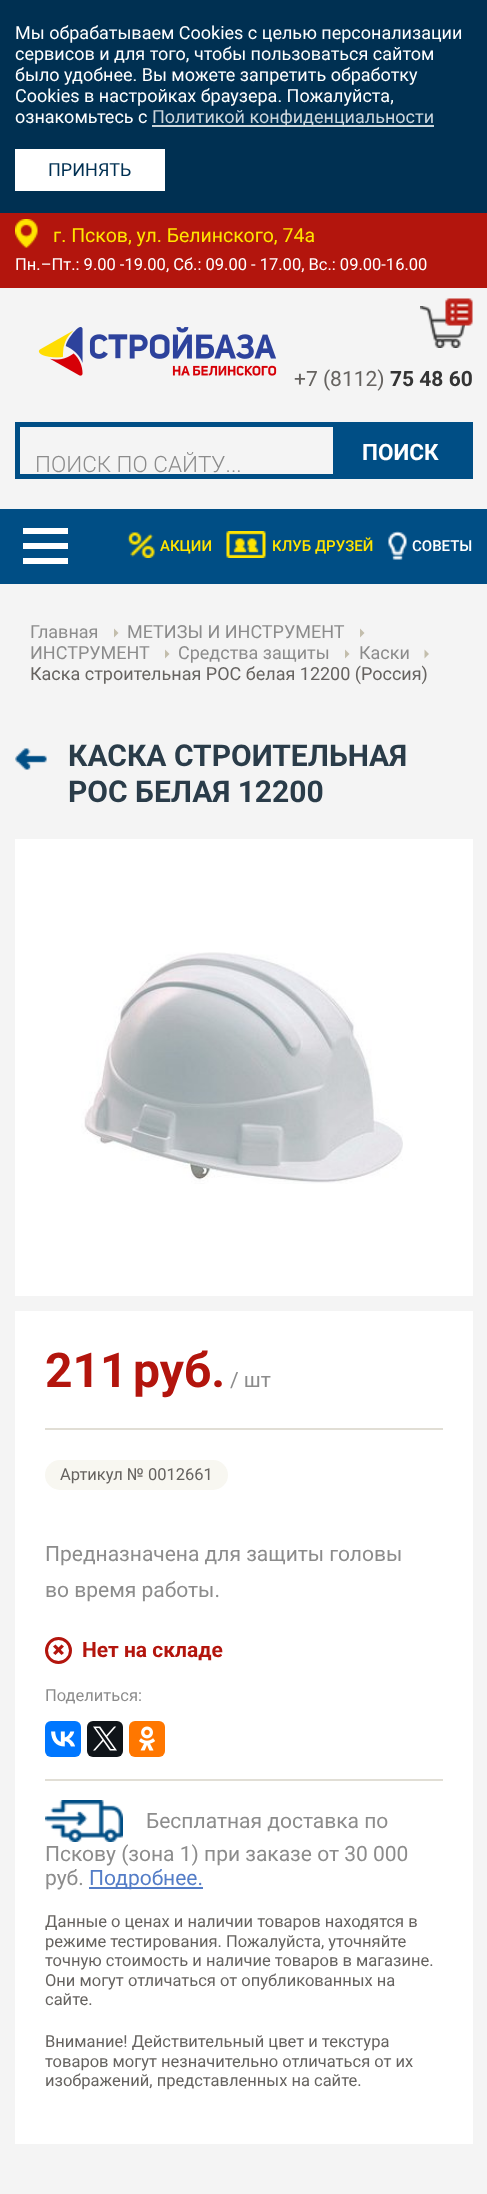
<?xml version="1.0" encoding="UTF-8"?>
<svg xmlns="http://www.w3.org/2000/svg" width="487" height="2194">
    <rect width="100%" height="100%" fill="#F4F4F4"/>
    <rect x="0" y="0" width="487" height="213" fill="#003052"/>
    <text font-family="Roboto" font-size="18" fill="#FFFFFF">
        <tspan x="15" y="39">Мы обрабатываем Cookies с целью персонализации</tspan>
        <tspan x="15" y="60">сервисов и для того, чтобы пользоваться сайтом</tspan>
        <tspan x="15" y="81">было удобнее. Вы можете запретить обработку</tspan>
        <tspan x="15" y="102">Cookies в настройках браузера. Пожалуйста,</tspan>
        <tspan x="15" y="123">ознакомьтесь с</tspan>
    </text>
    <rect x="152" y="125" width="282" height="2" fill="#CCD6DC"/>
    <text x="152" y="123" font-family="Roboto" font-size="18" fill="#CCD6DD">Политикой конфиденциальности</text>
    <rect x="15" y="149" width="150" height="42" fill="#FFFFFF"/>
    <text x="48" y="176" font-family="Roboto" font-size="18" fill="#003052">ПРИНЯТЬ</text>
    <rect x="0" y="213" width="487" height="75" fill="#B3150D"/>
    <image x="15" y="219" width="23" height="29" href="img_01.png"/>
    <text x="53" y="242" font-family="Roboto" font-size="19.5" fill="#FFE400">г. Псков, ул. Белинского, 74а</text>
    <text x="15" y="270" font-family="Roboto" font-size="16.5" fill="#FFFFFF">Пн.–Пт.: 9.00 -19.00, Сб.: 09.00 - 17.00, Вс.: 09.00-16.00</text>
    <image x="38" y="327" width="239" height="49" href="img_02.png"/>
    <image x="420" y="306" width="45" height="42" href="img_03.png"/>
    <image x="445" y="298" width="28" height="28" href="img_04.png"/>
    <text x="294" y="386" font-family="Roboto" font-size="21" fill="#666360">+7 (8112)</text>
    <text x="390" y="386" font-family="Roboto" font-size="21" font-weight="700" fill="#343434">75 48 60</text>
    <rect x="17.5" y="424.5" width="453" height="52" fill="none" stroke="#004E85" stroke-width="5"/>
    <text x="35" y="472" font-family="Roboto" font-size="22.5" font-weight="300" fill="#8C8C8C">ПОИСК ПО САЙТУ...</text>
    <rect x="333" y="427" width="135" height="47" fill="#004E85"/>
    <text x="362" y="460" font-family="Roboto" font-size="22.5" font-weight="700" fill="#FFFFFF">ПОИСК</text>
    <rect x="0" y="509" width="487" height="75" fill="#004E85"/>
    <rect x="23" y="543" width="45" height="6" fill="#FFFFFF"/>
    <rect x="23" y="528" width="45" height="6" fill="#FFFFFF"/>
    <rect x="23" y="558" width="45" height="6" fill="#FFFFFF"/>
    <image x="127" y="532" width="28" height="26" href="img_05.png"/>
    <text x="160" y="551" font-family="Roboto" font-size="15" font-weight="500" fill="#FFE400">АКЦИИ</text>
    <image x="226" y="531" width="40" height="27" href="img_06.png"/>
    <text x="272" y="551" font-family="Roboto" font-size="15" font-weight="500" fill="#FFE400">КЛУБ ДРУЗЕЙ</text>
    <image x="388" y="531" width="19" height="29" href="img_07.png"/>
    <text x="412" y="551" font-family="Roboto" font-size="15" font-weight="500" fill="#FFFFFF">СОВЕТЫ</text>
    <text x="30" y="638" font-family="Roboto" font-size="18" fill="#8C8C8C">Главная</text>
    <path d="M 114 637.5 V 628.5 L 118.5 633 Z" fill="#C3BEAC"/>
    <text x="127" y="638" font-family="Roboto" font-size="18" fill="#8C8C8C">МЕТИЗЫ И ИНСТРУМЕНТ</text>
    <path d="M 360 637.5 V 628.5 L 364.5 633 Z" fill="#C3BEAC"/>
    <text x="30" y="659" font-family="Roboto" font-size="18" fill="#8C8C8C">ИНСТРУМЕНТ</text>
    <path d="M 165 658.5 V 649.5 L 169.5 654 Z" fill="#C3BEAC"/>
    <text x="178" y="659" font-family="Roboto" font-size="18" fill="#8C8C8C">Средства защиты</text>
    <path d="M 345 658.5 V 649.5 L 349.5 654 Z" fill="#C3BEAC"/>
    <text x="359" y="659" font-family="Roboto" font-size="18" fill="#8C8C8C">Каски</text>
    <path d="M 424.5 658.5 V 649.5 L 429 654 Z" fill="#C3BEAC"/>
    <text x="30" y="680" font-family="Roboto" font-size="18" fill="#666360">Каска строительная РОС белая 12200 (Россия)</text>
    <image x="15" y="748" width="32" height="22" href="img_08.png"/>
    <text font-family="Roboto" font-size="30" font-weight="700" fill="#2A3C49">
        <tspan x="68" y="766">КАСКА СТРОИТЕЛЬНАЯ</tspan>
        <tspan x="68" y="802">РОС БЕЛАЯ 12200</tspan>
    </text>
    <rect x="15" y="839" width="458" height="457" fill="#FFFFFF"/>
    <image x="81" y="952" width="322" height="232" href="img_09.png"/>
    <rect x="15" y="1311" width="458" height="833" fill="#FFFFFF"/>
    <text x="45" y="1387" font-family="Roboto" font-size="48" font-weight="700" fill="#B3150D">211</text>
    <text x="133" y="1387" font-family="Roboto" font-size="48" font-weight="700" fill="#B3150D">руб.</text>
    <text x="230" y="1387" font-family="Roboto" font-size="21" fill="#8C8C8C">/ шт</text>
    <rect x="45" y="1428" width="398" height="2" fill="#E1DED5"/>
    <rect x="45" y="1460" width="183" height="30" rx="15" fill="#F8F7F1"/>
    <text x="60" y="1480" font-family="Roboto" font-size="16.5" fill="#666360">Артикул № 0012661</text>
    <text font-family="Roboto" font-size="21" fill="#8C8C8C">
        <tspan x="45" y="1561">Предназначена для защиты головы</tspan>
        <tspan x="45" y="1597">во время работы.</tspan>
    </text>
    <circle cx="58.5" cy="1650.5" r="12" fill="none" stroke="#B3150D" stroke-width="3"/>
    <path d="M 61.5 1644.5 L 64 1646.5 L 55.5 1655 L 53 1653 Z" fill="#B3150D"/>
    <path d="M 53 1646.5 L 55.5 1644.5 L 64 1653 L 61.5 1655 Z" fill="#B3150D"/>
    <text x="82" y="1657" font-family="Roboto" font-size="21" font-weight="700" fill="#B3150D">Нет на складе</text>
    <text x="45" y="1701" font-family="Roboto" font-size="16.5" fill="#8C8C8C">Поделиться:</text>
    <rect x="45" y="1721" width="36" height="36" rx="6" fill="#0077FF"/>
    <image x="51" y="1731" width="24" height="16" href="img_10.png"/>
    <rect x="87" y="1721" width="36" height="36" rx="6" fill="#0F1419"/>
    <image x="93" y="1726" width="24" height="25" href="img_11.png"/>
    <rect x="129" y="1721" width="36" height="36" rx="6" fill="#FF7700"/>
    <image x="139" y="1726" width="16" height="25" href="img_12.png"/>
    <rect x="45" y="1779" width="398" height="2" fill="#E1DED5"/>
    <image x="45" y="1800" width="78" height="42" href="img_13.png"/>
    <text x="146" y="1828" font-family="Roboto" font-size="21" fill="#8C8C8C">Бесплатная доставка по</text>
    <text font-family="Roboto" font-size="21" fill="#8C8C8C">
        <tspan x="45" y="1861">Пскову (зона 1) при заказе от 30 000</tspan>
        <tspan x="45" y="1885">руб.</tspan>
    </text>
    <rect x="89" y="1887" width="114" height="2" fill="#547DC7"/>
    <text x="89" y="1885" font-family="Roboto" font-size="21" fill="#547DC7">Подробнее.</text>
    <text font-family="Roboto" font-size="16.5" fill="#666360">
        <tspan x="45" y="1927">Данные о ценах и наличии товаров находятся в</tspan>
        <tspan x="45" y="1947">режиме тестирования. Пожалуйста, уточняйте</tspan>
        <tspan x="45" y="1966">точную стоимость и наличие товаров в магазине.</tspan>
        <tspan x="45" y="1986">Они могут отличаться от опубликованных на</tspan>
        <tspan x="45" y="2005">сайте.</tspan>
    </text>
    <text font-family="Roboto" font-size="16.5" fill="#666360">
        <tspan x="45" y="2047">Внимание! Действительный цвет и текстура</tspan>
        <tspan x="45" y="2067">товаров могут незначительно отличаться от их</tspan>
        <tspan x="45" y="2086">изображений, представленных на сайте.</tspan>
    </text>
</svg>
